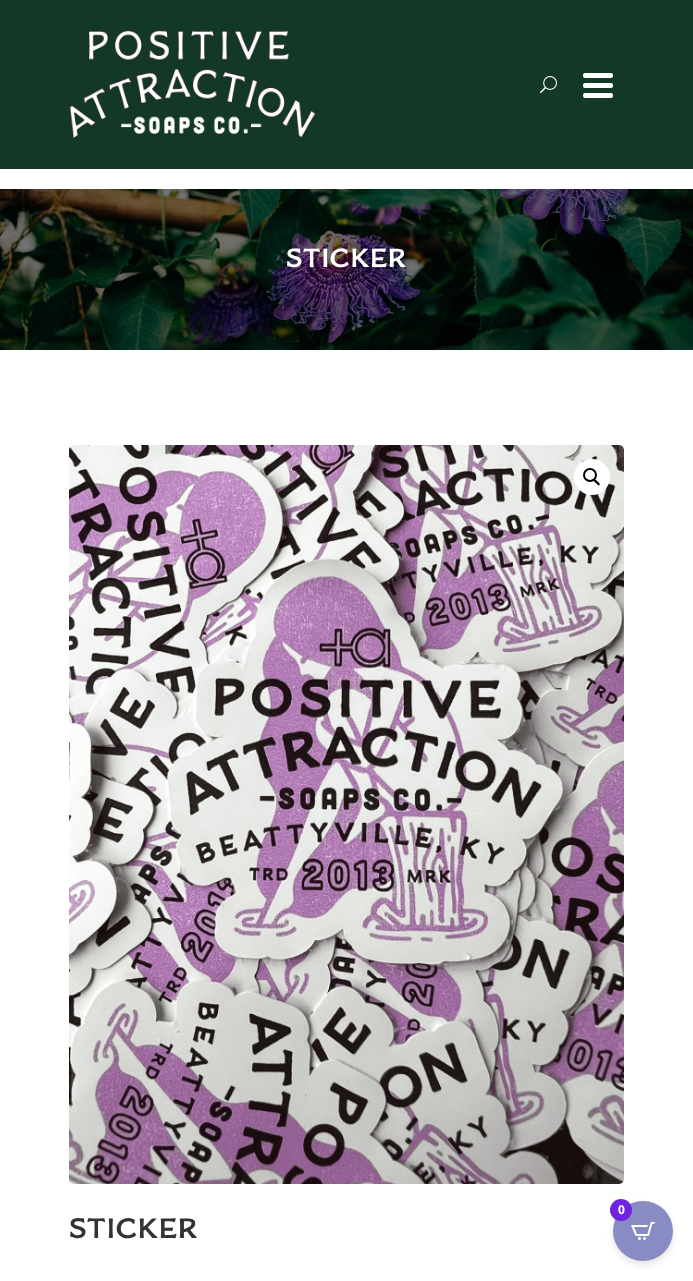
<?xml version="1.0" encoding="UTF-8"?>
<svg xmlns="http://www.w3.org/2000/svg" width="693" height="1281">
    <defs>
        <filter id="blur1" x="-50%" y="-200%" width="200%" height="500%"><feGaussianBlur stdDeviation="3.5"/></filter>
    </defs>
    <rect width="100%" height="100%" fill="#FFFFFF"/>
    <rect x="0" y="0" width="693" height="169" fill="#143826"/>
    <image x="69" y="30" width="247" height="109" href="img_01.png"/>
    <image x="540" y="76" width="17" height="18" href="img_02.png"/>
    <rect x="583" y="93" width="30" height="5" rx="2" fill="#FFFFFF"/>
    <rect x="583" y="73" width="30" height="5" rx="2" fill="#FFFFFF"/>
    <rect x="583" y="83" width="30" height="5" rx="2" fill="#FFFFFF"/>
    <image x="0" y="189" width="693" height="161" href="img_03.png"/>
    <text x="286" y="267" font-family="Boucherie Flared" font-size="28" font-weight="700" letter-spacing="1" fill="#FFFFFF">STICKER</text>
    <image x="69" y="445" width="555" height="739" href="img_04.png"/>
    <circle cx="592" cy="477" r="18" fill="#FFFFFF"/>
    <circle cx="590" cy="475" r="6" fill="none" stroke="#000000" stroke-width="2"/>
    <path d="M 594 479.5 C 595 478.5 597 481 597.5 481.5 C 598 482 600.5 484 599.5 485 C 598.5 486.5 596.5 483.5 596 483 C 595.5 482.5 592.5 480.5 594 479.5 Z" fill="#000000"/>
    <text x="69" y="1238" font-family="Boucherie Flared" font-size="30" font-weight="700" letter-spacing="1" fill="#333333">STICKER</text>
    <rect x="613" y="1205" width="60" height="60" rx="30" fill="#000000" fill-opacity="0.1" filter="url(#blur1)"/>
    <circle cx="643" cy="1231" r="30" fill="#898BC4"/>
    <circle cx="621" cy="1210" r="11" fill="#6F23E1"/>
    <text x="618" y="1214" font-family="Open Sans" font-size="12" font-weight="700" fill="#FFFFFF">0</text>
    <image x="631" y="1222" width="24" height="18" href="img_05.png"/>
</svg>
